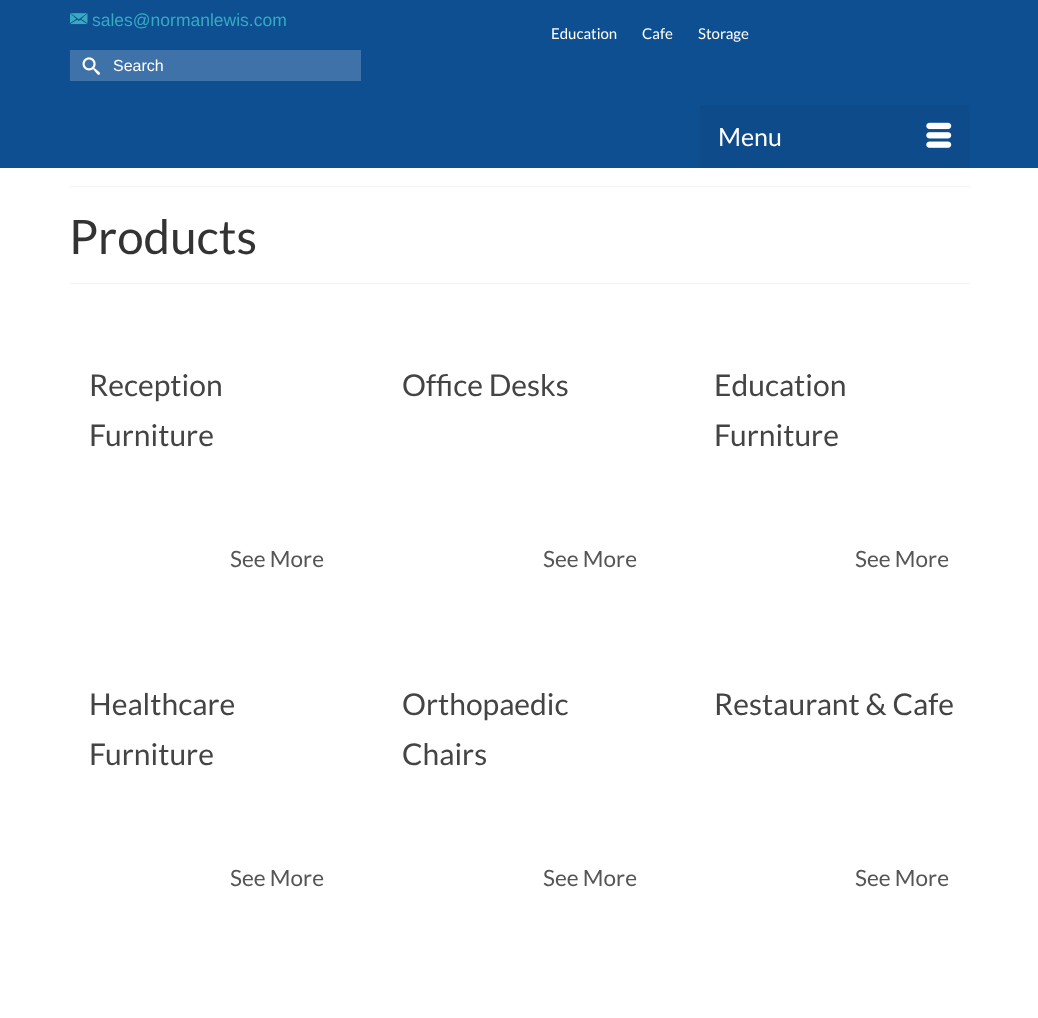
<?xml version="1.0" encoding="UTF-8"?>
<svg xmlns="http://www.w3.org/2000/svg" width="1038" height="1018">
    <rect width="100%" height="100%" fill="#FFFFFF"/>
    <rect x="0" y="0" width="1038" height="168" fill="#0E4F92"/>
    <image x="70" y="13" width="18" height="12" href="img_01.png"/>
    <text x="92" y="26" font-family="Liberation Sans" font-size="17.5" fill="#36AAC1">sales@normanlewis.com</text>
    <rect x="70" y="50" width="291" height="31" fill="#3E72A8"/>
    <image x="82" y="57" width="18" height="18" href="img_02.png"/>
    <text x="113" y="71" font-family="Liberation Sans" font-size="16" fill="#FFFFFF">Search</text>
    <text x="551" y="39" font-family="Lato" font-size="15" fill="#FFFFFF">Education</text>
    <text x="642" y="39" font-family="Lato" font-size="15" fill="#FFFFFF">Cafe</text>
    <text x="698" y="39" font-family="Lato" font-size="15" fill="#FFFFFF">Storage</text>
    <rect x="700" y="105" width="270" height="63" fill="#0D4B8B"/>
    <text x="718" y="146" font-family="Lato" font-size="25" fill="#FFFFFF">Menu</text>
    <image x="926" y="122" width="26" height="26" href="img_03.png"/>
    <rect x="70" y="186" width="900" height="1" fill="#F2F2F2"/>
    <rect x="70" y="283" width="900" height="1" fill="#F2F2F2"/>
    <text x="69" y="254" font-family="Lato" font-size="47.5" fill="#333333">Products</text>
    <text font-family="Lato" font-size="30" fill="#444444">
        <tspan x="89" y="396">Reception</tspan>
        <tspan x="89" y="446">Furniture</tspan>
    </text>
    <text x="230" y="567" font-family="Lato" font-size="22.5" fill="#555555">See More</text>
    <text font-family="Lato" font-size="30" fill="#444444">
        <tspan x="89" y="715">Healthcare</tspan>
        <tspan x="89" y="765">Furniture</tspan>
    </text>
    <text x="230" y="886" font-family="Lato" font-size="22.5" fill="#555555">See More</text>
    <text x="402" y="396" font-family="Lato" font-size="30" fill="#444444">Office Desks</text>
    <text x="543" y="567" font-family="Lato" font-size="22.5" fill="#555555">See More</text>
    <text font-family="Lato" font-size="30" fill="#444444">
        <tspan x="402" y="715">Orthopaedic</tspan>
        <tspan x="402" y="765">Chairs</tspan>
    </text>
    <text x="543" y="886" font-family="Lato" font-size="22.5" fill="#555555">See More</text>
    <text font-family="Lato" font-size="30" fill="#444444">
        <tspan x="714" y="396">Education</tspan>
        <tspan x="714" y="446">Furniture</tspan>
    </text>
    <text x="855" y="567" font-family="Lato" font-size="22.5" fill="#555555">See More</text>
    <text x="714" y="715" font-family="Lato" font-size="30" fill="#444444">Restaurant &amp; Cafe</text>
    <text x="855" y="886" font-family="Lato" font-size="22.5" fill="#555555">See More</text>
</svg>
